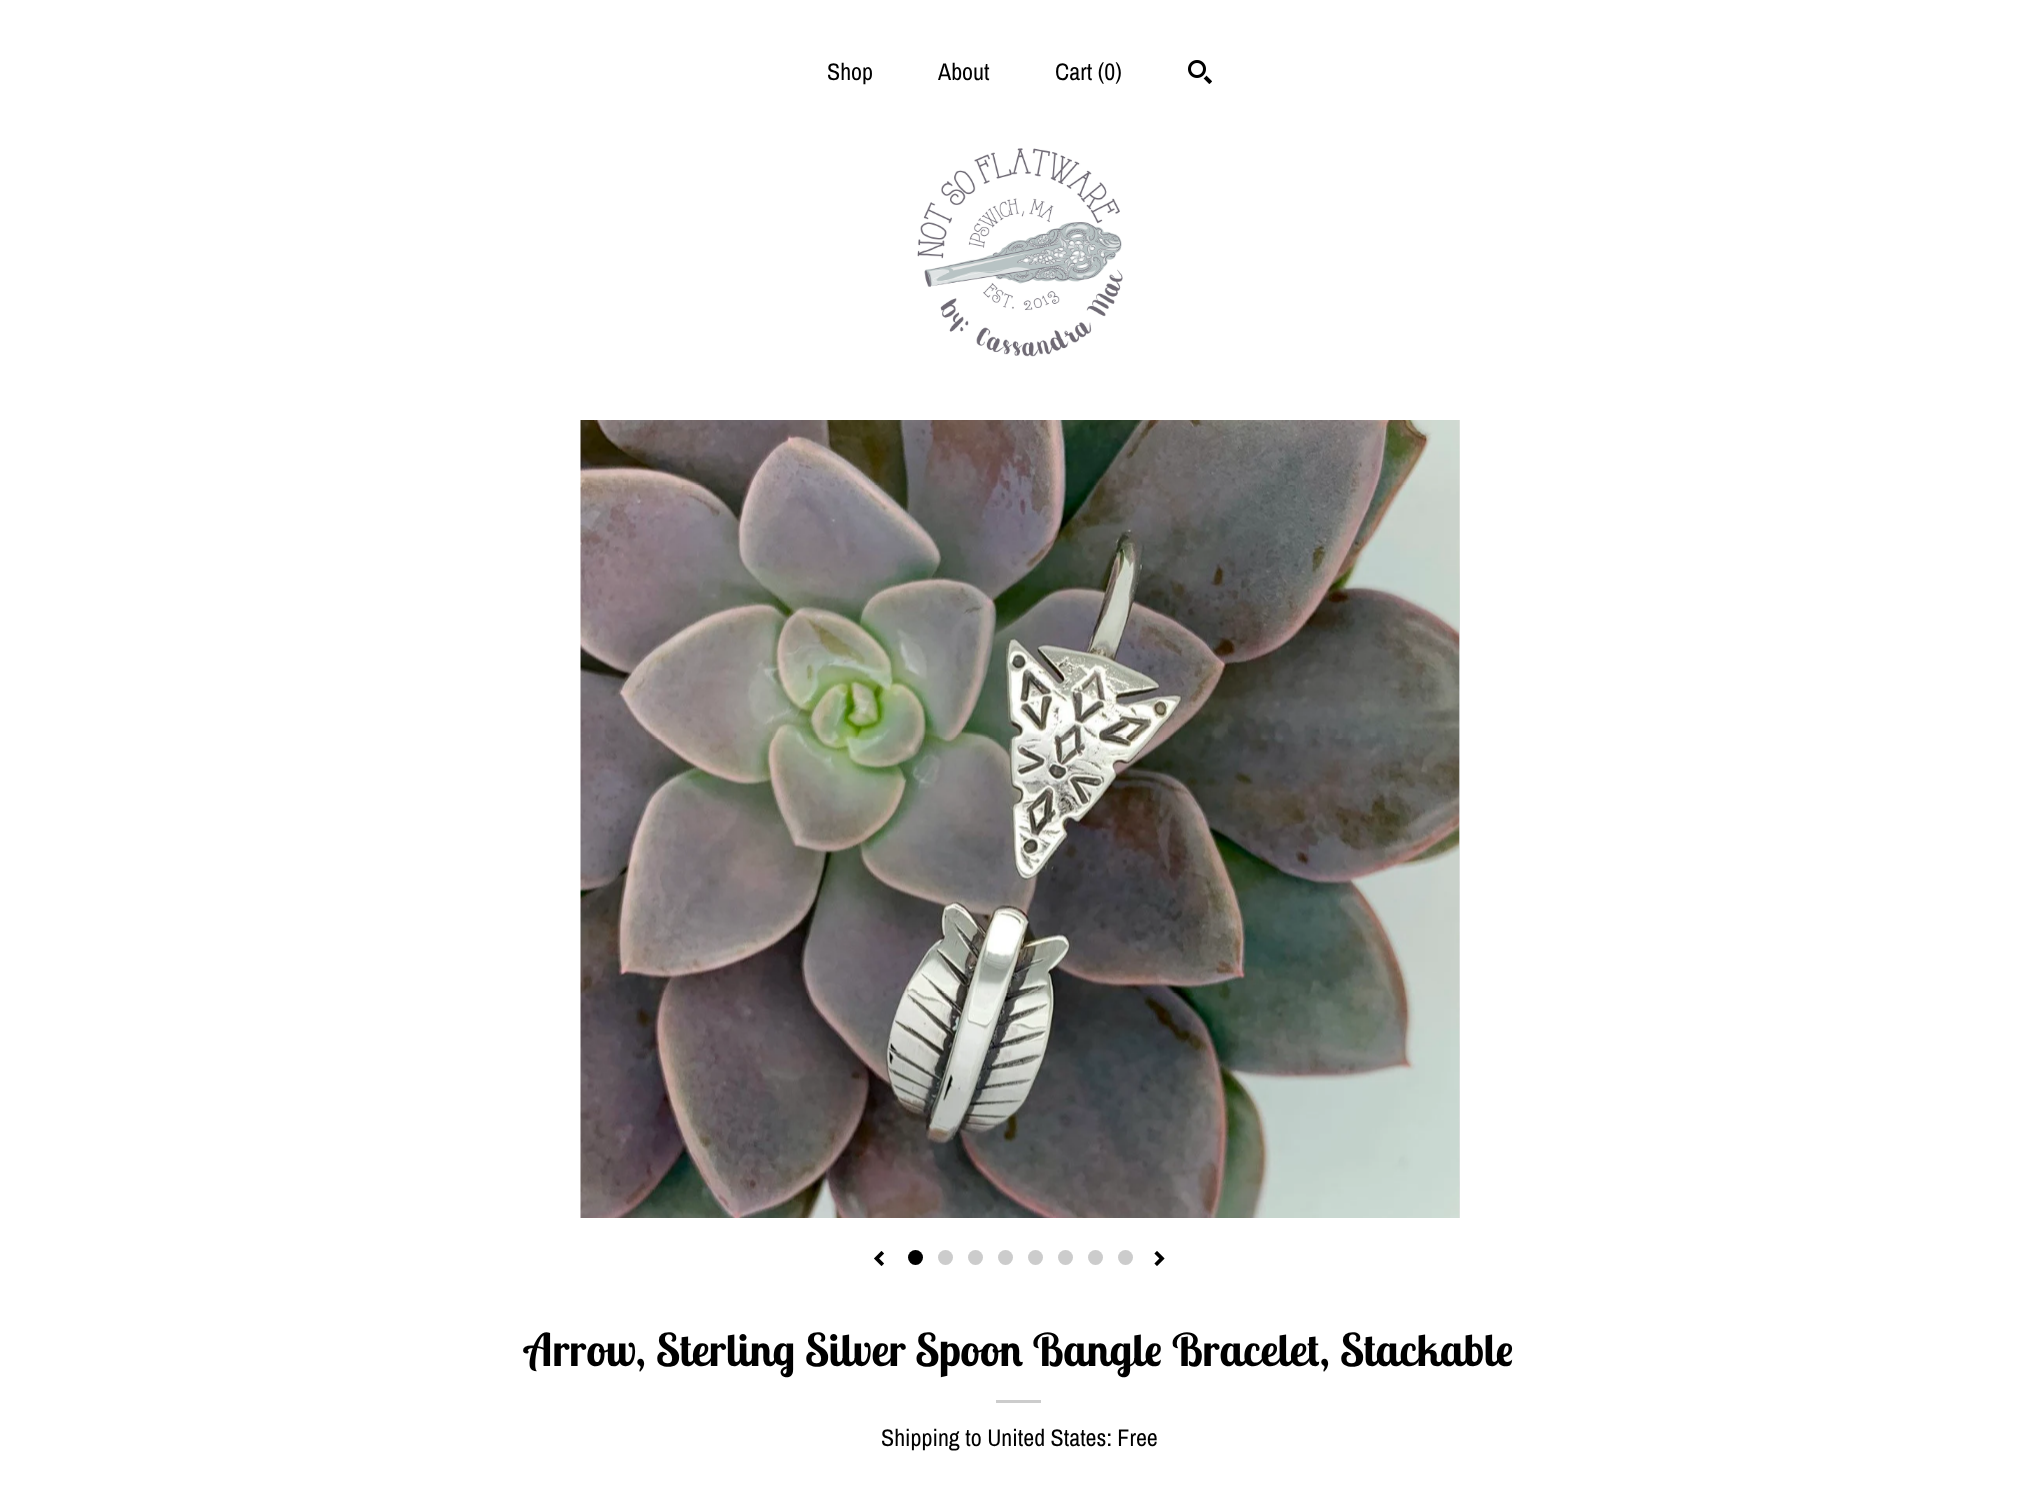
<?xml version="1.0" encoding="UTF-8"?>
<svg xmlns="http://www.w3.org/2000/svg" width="2038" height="1487">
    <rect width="100%" height="100%" fill="#FFFFFF"/>
    <text x="827" y="80" font-family="Archivo Narrow" font-size="24" fill="#000000">Shop</text>
    <text x="938" y="80" font-family="Archivo Narrow" font-size="24" fill="#000000">About</text>
    <text x="1055" y="80" font-family="Archivo Narrow" font-size="24" fill="#000000">Cart (0)</text>
    <image x="1188" y="60" width="24" height="24" href="img_01.png"/>
    <image x="917" y="148" width="206" height="209" href="img_02.png"/>
    <image x="580" y="420" width="880" height="798" href="img_03.png"/>
    <image x="1459" y="420" width="1" height="798" href="img_04.png"/>
    <image x="874" y="1251" width="10" height="15" href="img_05.png"/>
    <circle cx="915.5" cy="1257.5" r="7.5" fill="#000000"/>
    <circle cx="945.5" cy="1257.5" r="7.5" fill="#CCCCCC"/>
    <circle cx="975.5" cy="1257.5" r="7.5" fill="#CCCCCC"/>
    <circle cx="1005.5" cy="1257.5" r="7.5" fill="#CCCCCC"/>
    <circle cx="1035.5" cy="1257.5" r="7.5" fill="#CCCCCC"/>
    <circle cx="1065.5" cy="1257.5" r="7.5" fill="#CCCCCC"/>
    <circle cx="1095.5" cy="1257.5" r="7.5" fill="#CCCCCC"/>
    <circle cx="1125.5" cy="1257.5" r="7.5" fill="#CCCCCC"/>
    <image x="1154" y="1251" width="11" height="15" href="img_06.png"/>
    <text x="525" y="1366" font-family="Lobster Two" font-size="45" font-weight="700" fill="#000000">Arrow, Sterling Silver Spoon Bangle Bracelet, Stackable</text>
    <rect x="996" y="1400" width="45" height="3" fill="#CCCCCC"/>
    <text x="881" y="1446" font-family="Archivo Narrow" font-size="24" fill="#000000">Shipping to United States: Free</text>
</svg>
